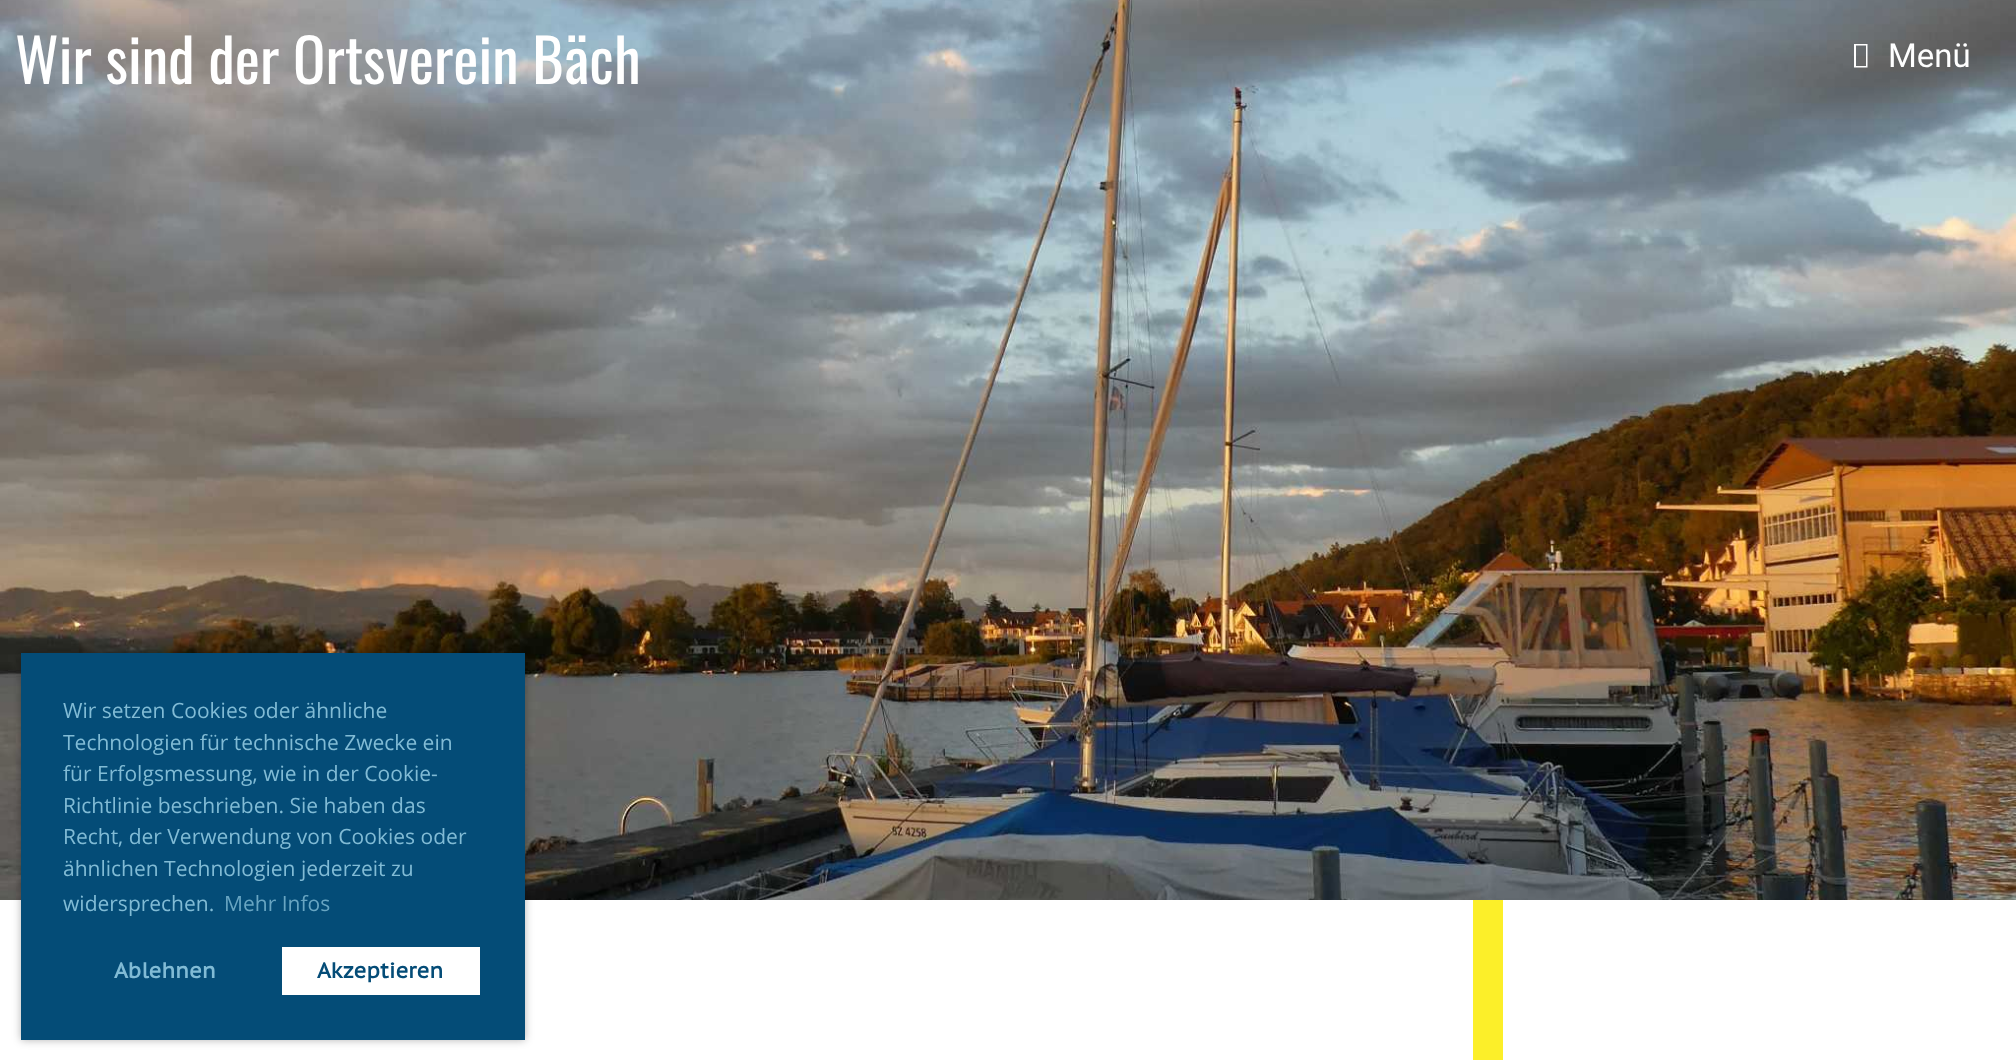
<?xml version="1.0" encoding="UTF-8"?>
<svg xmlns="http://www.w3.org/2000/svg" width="2016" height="1060">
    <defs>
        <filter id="blur1" x="-50%" y="-200%" width="200%" height="500%"><feGaussianBlur stdDeviation="4"/></filter>
    </defs>
    <rect width="100%" height="100%" fill="#FFFFFF"/>
    <image x="0" y="0" width="2016" height="900" href="img_01.png"/>
    <rect x="1473" y="900" width="30" height="160" fill="#FCEF29"/>
    <text x="15" y="84" font-family="Oswald" font-size="60" fill="#FFFFFF">Wir sind der Ortsverein Bäch</text>
    <path d="M 1854 67.5 V 44 H 1867.5 V 67.5 Z M 1856 66 H 1866 V 45.5 H 1856 Z" fill="#FFFFFF"/>
    <text x="1888" y="67" font-family="Roboto" font-size="33" fill="#FFFFFF">Menü</text>
    <rect x="21" y="653" width="504" height="387" fill="#000000" fill-opacity="0.3" filter="url(#blur1)"/>
    <rect x="21" y="653" width="504" height="387" fill="#044C77"/>
    <text font-family="Open Sans" font-size="21" fill="#81BBD5">
        <tspan x="63" y="718">Wir setzen Cookies oder ähnliche</tspan>
        <tspan x="63" y="750">Technologien für technische Zwecke ein</tspan>
        <tspan x="63" y="781">für Erfolgsmessung, wie in der Cookie-</tspan>
        <tspan x="63" y="813">Richtlinie beschrieben. Sie haben das</tspan>
        <tspan x="63" y="844">Recht, der Verwendung von Cookies oder</tspan>
        <tspan x="63" y="876">ähnlichen Technologien jederzeit zu</tspan>
        <tspan x="63" y="911">widersprechen.</tspan>
    </text>
    <text x="224" y="911" font-family="Open Sans" font-size="21" fill="#68A5C2">Mehr Infos</text>
    <text x="114" y="978" font-family="PT Sans Caption" font-size="21.5" font-weight="700" fill="#81BBD5">Ablehnen</text>
    <rect x="282" y="947" width="198" height="48" fill="#FFFFFF"/>
    <text x="317" y="978" font-family="PT Sans Caption" font-size="21.5" font-weight="700" fill="#044C77">Akzeptieren</text>
</svg>
